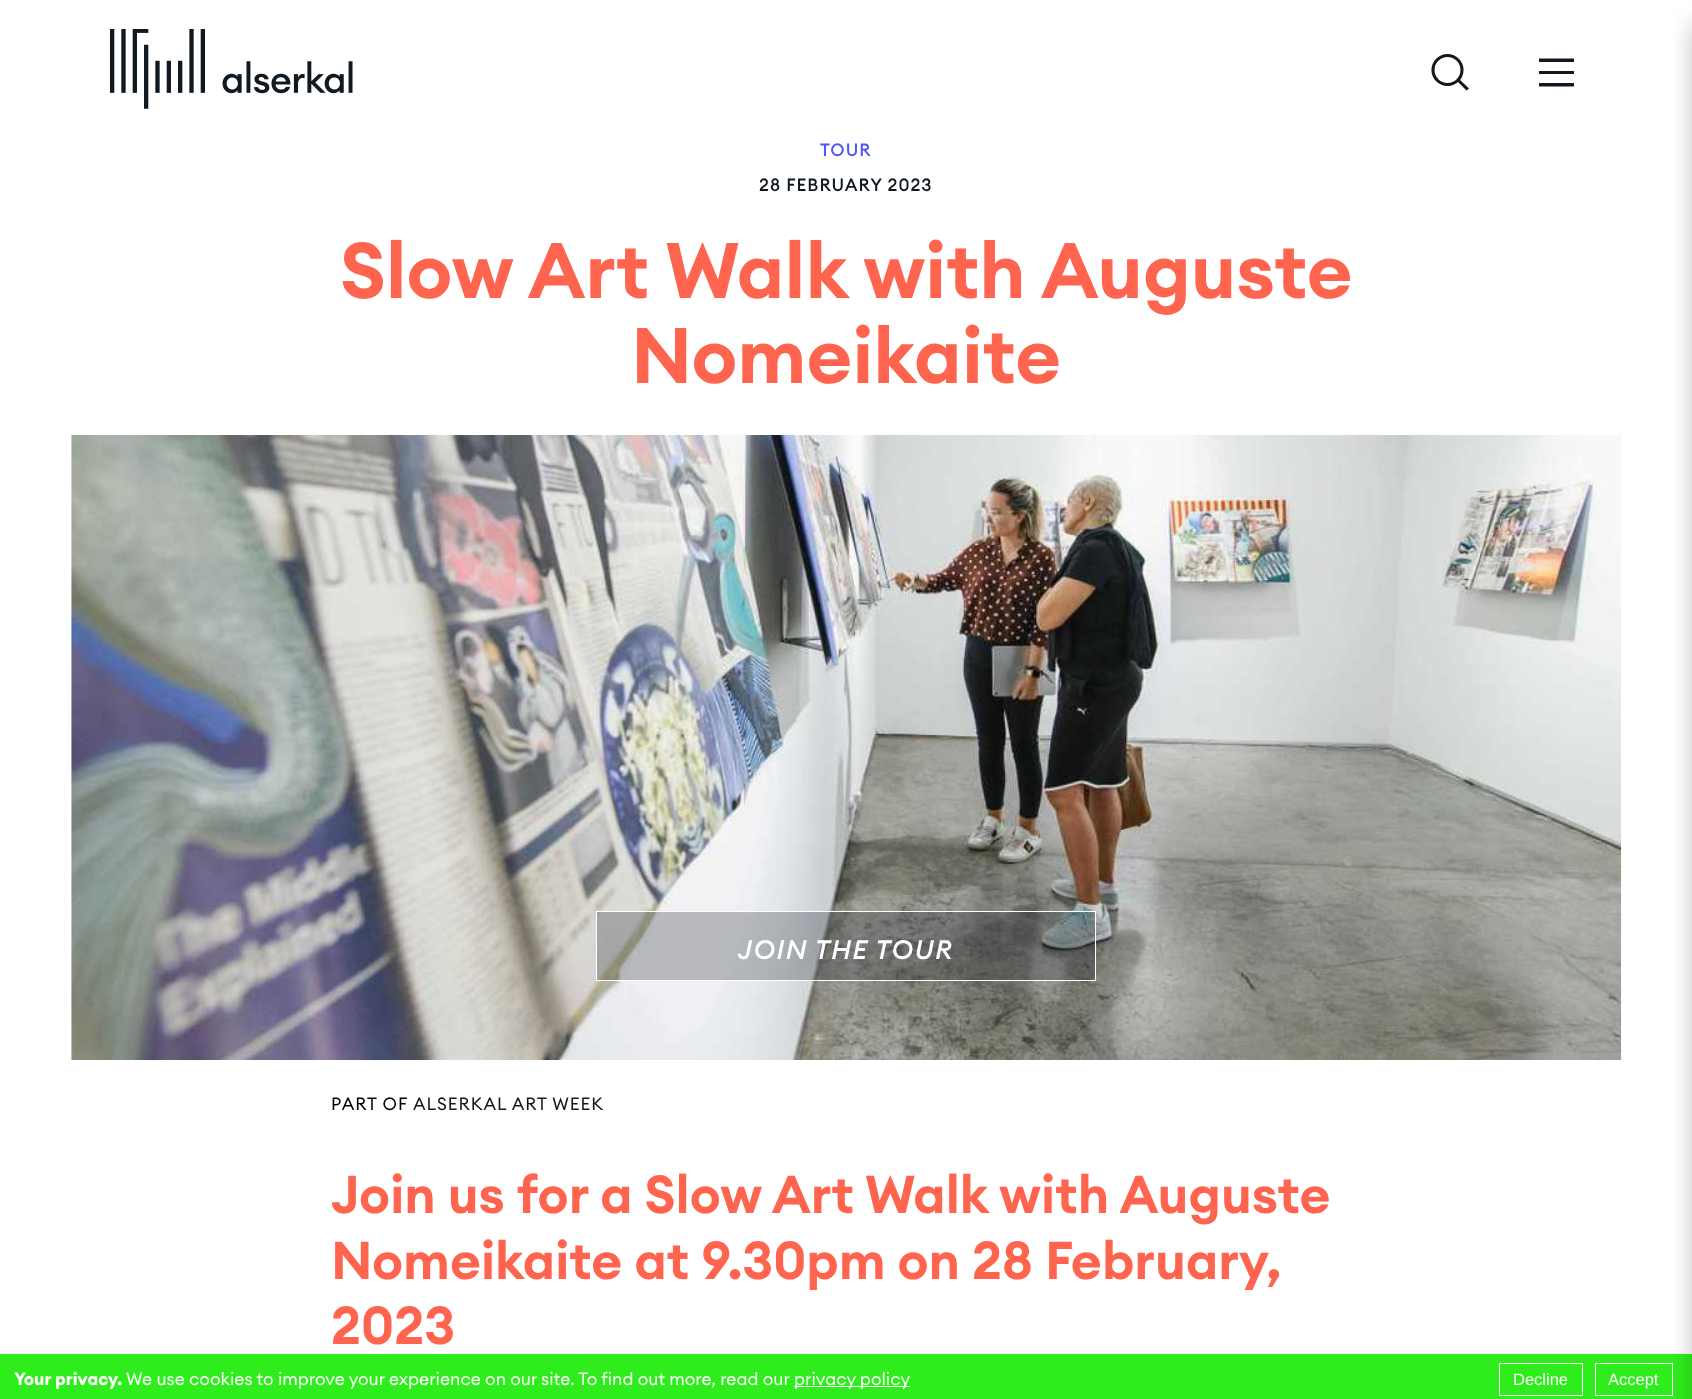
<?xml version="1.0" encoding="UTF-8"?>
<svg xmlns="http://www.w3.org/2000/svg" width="1692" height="1399">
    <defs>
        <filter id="blur1" x="-50%" y="-200%" width="200%" height="500%"><feGaussianBlur stdDeviation="12.5"/></filter>
    </defs>
    <rect width="100%" height="100%" fill="#FFFFFF"/>
    <image x="110" y="29" width="243" height="80" href="img_01.png"/>
    <path d="M 1458.5 78.5 L 1469 88.5 L 1466.5 90.5 L 1456.5 80.5 Z" fill="#101820"/>
    <circle cx="1447.5" cy="70" r="14.5" fill="none" stroke="#101820" stroke-width="3.1"/>
    <path d="M 1574 58.5 H 1539 V 62 H 1574 Z M 1574 71 H 1539 V 74 H 1574 Z M 1574 83 H 1539 V 86.5 H 1574 Z" fill="#101820"/>
    <text x="820" y="156" font-family="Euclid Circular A" font-size="17.5" font-weight="500" letter-spacing="1" fill="#5157F6">TOUR</text>
    <text x="759" y="191" font-family="Euclid Circular A" font-size="17.5" font-weight="500" letter-spacing="1" fill="#101820">28 FEBRUARY 2023</text>
    <text x="340" y="298" font-family="Euclid Circular A" font-size="77.5" font-weight="600" fill="#FF644E">Slow Art Walk with Auguste</text>
    <text x="631" y="383" font-family="Euclid Circular A" font-size="77.5" font-weight="600" fill="#FF644E">Nomeikaite</text>
    <image x="71" y="435" width="1551" height="625" href="img_02.png"/>
    <rect x="596.5" y="911.5" width="499" height="69" fill="#101820" fill-opacity="0.25" stroke="#FFFFFF"/>
    <text x="738" y="959" font-family="Euclid Circular A" font-size="26.25" font-weight="500" font-style="italic" letter-spacing="1.5" fill="#FFFFFF">JOIN THE TOUR</text>
    <text x="331" y="1110" font-family="Euclid Circular A" font-size="17.5" letter-spacing="1" fill="#000000">PART OF</text>
    <text x="413" y="1110" font-family="Euclid Circular A" font-size="17.5" letter-spacing="1" fill="#101820">ALSERKAL ART WEEK</text>
    <text font-family="Euclid Circular A" font-size="52.5" font-weight="600" fill="#FF644E">
        <tspan x="331" y="1213">Join us for a Slow Art Walk with Auguste</tspan>
        <tspan x="331" y="1279">Nomeikaite at 9.30pm on 28 February,</tspan>
        <tspan x="331" y="1344">2023</tspan>
    </text>
    <rect x="0" y="1354" width="1692" height="45" fill="#2FED1C"/>
    <text x="14" y="1385" font-family="Euclid Circular A" font-size="17.5" font-weight="700" fill="#FFFFFF">Your privacy.</text>
    <text x="126" y="1385" font-family="Euclid Circular A" font-size="17.5" fill="#FFFFFF">We use cookies to improve your experience on our site. To find out more, read our</text>
    <rect x="794" y="1386" width="116" height="1" fill="#FFFFFF"/>
    <text x="794" y="1385" font-family="Euclid Circular A" font-size="17.5" fill="#FFFFFF">privacy policy</text>
    <rect x="1499.5" y="1363.5" width="83" height="32" fill="none" stroke="#FFFFFF"/>
    <text x="1513" y="1385" font-family="Liberation Sans" font-size="16.5" fill="#FFFFFF">Decline</text>
    <rect x="1595.5" y="1363.5" width="77" height="32" fill="none" stroke="#FFFFFF"/>
    <text x="1608" y="1385" font-family="Liberation Sans" font-size="16.5" fill="#FFFFFF">Accept</text>
    <rect x="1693" y="25" width="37" height="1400" fill="#000000" fill-opacity="0.25" filter="url(#blur1)"/>
</svg>
